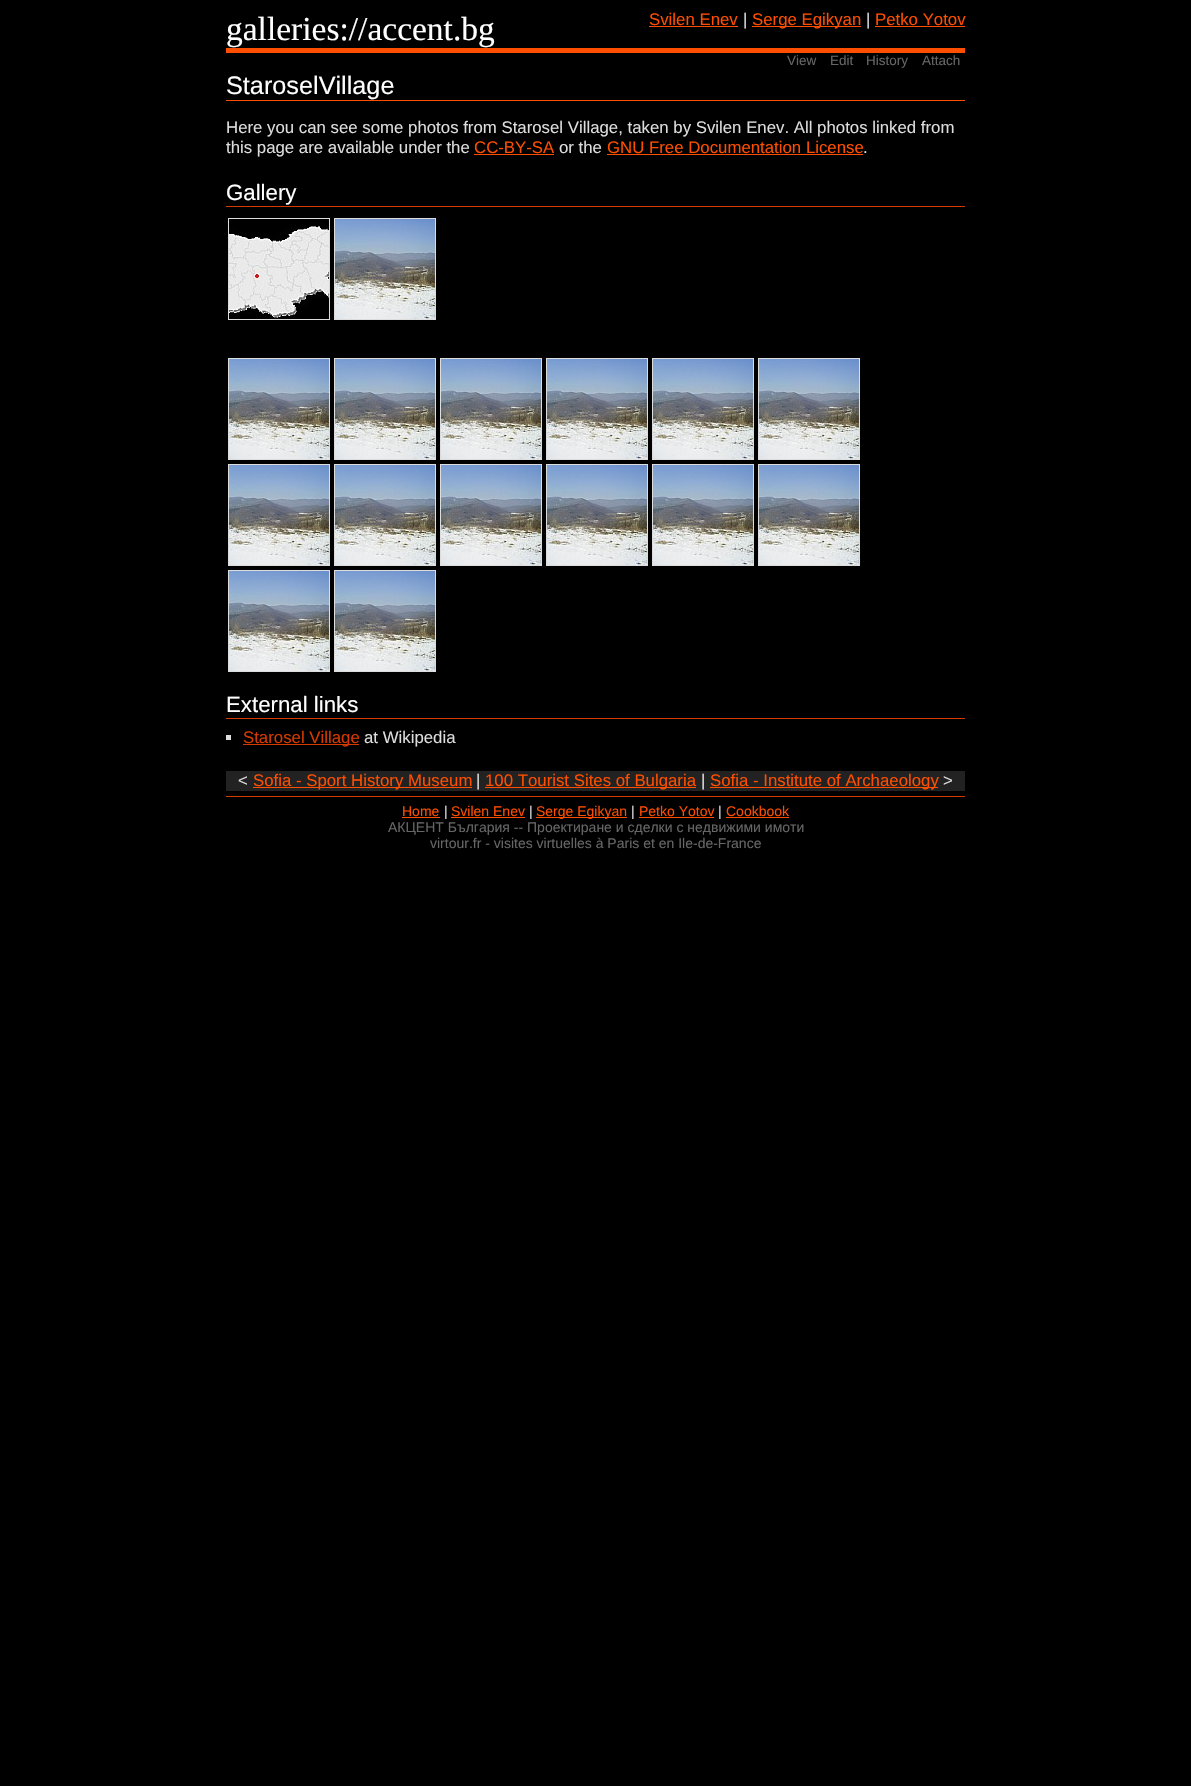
static SkFont makeFont(const char* family, int weight, float size, bool italic = false) {
  SkFontStyle style(weight, SkFontStyle::kNormal_Width,
    italic ? SkFontStyle::kItalic_Slant : SkFontStyle::kUpright_Slant);
  SkFont result(fontMgr->matchFamilyStyle(family, style), size);
  result.setSubpixel(true);
  return result;
}

static void text(SkCanvas* c, const char* s, float x, float y, const SkFont& font, SkColor color) {
  SkPaint ink(SkColor4f::FromColor(color));
  ink.setAntiAlias(true);
  c->drawString(s, x, y, font, ink);
}

static void box(SkCanvas* c, float l, float t, float r, float b, SkColor color) {
  SkPaint ink(SkColor4f::FromColor(color));
  ink.setAntiAlias(true);
  c->drawRect(SkRect::MakeLTRB(l, t, r, b), ink);
}

static void picture(SkCanvas* c, const char* path, float l, float t, float r, float b) {
  auto image = SkImages::DeferredFromEncodedData(SkData::MakeFromFileName(path));
  c->drawImageRect(image, SkRect::MakeLTRB(l, t, r, b), SkSamplingOptions());
}

void draw(SkCanvas* c) {
  SkPaint paint;
  paint.setAntiAlias(true);
  c->clear(0xff000000);
  box(c, 226, 48, 965, 53, 0xfffe4e00);
  SkFont face1 = makeFont("Liberation Serif", 400, 33.5f);
  text(c, "galleries://accent.bg", 226, 40, face1, 0xffffffff);
  SkFont face2 = makeFont("Liberation Sans", 400, 16.8f);
  text(c, "Svilen Enev", 649, 25, face2, 0xfffe4e00);
  box(c, 649, 26, 738, 27, 0xfffe4e00);
  text(c, "|", 743, 25, face2, 0xffdddddd);
  box(c, 752, 26, 861, 27, 0xfffe4e00);
  text(c, "Serge Egikyan", 752, 25, face2, 0xfffe4e00);
  text(c, "|", 866, 25, face2, 0xffdddddd);
  text(c, "Petko Yotov", 875, 25, face2, 0xfffe4e00);
  box(c, 875, 26, 965, 27, 0xfffe4e00);
  SkFont face3 = makeFont("Liberation Sans", 400, 13.5f);
  text(c, "View", 787, 65, face3, 0xff666666);
  text(c, "Edit", 830, 65, face3, 0xff666666);
  text(c, "History", 866, 65, face3, 0xff666666);
  text(c, "Attach", 922, 65, face3, 0xff666666);
  box(c, 226, 100, 965, 101, 0xfffe4e00);
  SkFont face4 = makeFont("Liberation Sans", 400, 25.25f);
  text(c, "StaroselVillage", 226, 94, face4, 0xffffffff);
  text(c, "Here you can see some photos from Starosel Village, taken by Svilen Enev. All photos linked from", 226, 133, face2, 0xffdddddd);
  text(c, "this page are available under the", 226, 153, face2, 0xffdddddd);
  text(c, "CC-BY-SA", 474, 153, face2, 0xfffe4e00);
  box(c, 474, 154, 554, 155, 0xfffe4e00);
  text(c, "or the", 559, 153, face2, 0xffdddddd);
  text(c, "GNU Free Documentation License", 607, 153, face2, 0xfffe4e00);
  box(c, 607, 154, 863, 155, 0xfffe4e00);
  text(c, ".", 863, 153, face2, 0xffdddddd);
  box(c, 226, 206, 965, 207, 0xffd53a00);
  SkFont face5 = makeFont("Liberation Sans", 400, 22.25f);
  text(c, "Gallery", 226, 200, face5, 0xffffffff);
  paint.setStyle(SkPaint::kStroke_Style);
  paint.setStrokeWidth(1);
  paint.setColor(0xffdddddd);
  c->drawRect(SkRect::MakeLTRB(228.5f, 218.5f, 329.5f, 319.5f), paint);
  c->drawRect(SkRect::MakeLTRB(334.5f, 218.5f, 435.5f, 319.5f), paint);
  picture(c, "img_01.png", 229, 219, 329, 319);
  picture(c, "img_02.png", 335, 219, 435, 319);
  c->drawRect(SkRect::MakeLTRB(228.5f, 358.5f, 329.5f, 459.5f), paint);
  c->drawRect(SkRect::MakeLTRB(334.5f, 358.5f, 435.5f, 459.5f), paint);
  c->drawRect(SkRect::MakeLTRB(440.5f, 358.5f, 541.5f, 459.5f), paint);
  c->drawRect(SkRect::MakeLTRB(546.5f, 358.5f, 647.5f, 459.5f), paint);
  c->drawRect(SkRect::MakeLTRB(652.5f, 358.5f, 753.5f, 459.5f), paint);
  c->drawRect(SkRect::MakeLTRB(758.5f, 358.5f, 859.5f, 459.5f), paint);
  picture(c, "img_02.png", 229, 359, 329, 459);
  picture(c, "img_02.png", 335, 359, 435, 459);
  picture(c, "img_02.png", 441, 359, 541, 459);
  picture(c, "img_02.png", 547, 359, 647, 459);
  picture(c, "img_02.png", 653, 359, 753, 459);
  picture(c, "img_02.png", 759, 359, 859, 459);
  c->drawRect(SkRect::MakeLTRB(228.5f, 464.5f, 329.5f, 565.5f), paint);
  c->drawRect(SkRect::MakeLTRB(334.5f, 464.5f, 435.5f, 565.5f), paint);
  c->drawRect(SkRect::MakeLTRB(440.5f, 464.5f, 541.5f, 565.5f), paint);
  c->drawRect(SkRect::MakeLTRB(546.5f, 464.5f, 647.5f, 565.5f), paint);
  c->drawRect(SkRect::MakeLTRB(652.5f, 464.5f, 753.5f, 565.5f), paint);
  c->drawRect(SkRect::MakeLTRB(758.5f, 464.5f, 859.5f, 565.5f), paint);
  picture(c, "img_02.png", 229, 465, 329, 565);
  picture(c, "img_02.png", 335, 465, 435, 565);
  picture(c, "img_02.png", 441, 465, 541, 565);
  picture(c, "img_02.png", 547, 465, 647, 565);
  picture(c, "img_02.png", 653, 465, 753, 565);
  picture(c, "img_02.png", 759, 465, 859, 565);
  c->drawRect(SkRect::MakeLTRB(228.5f, 570.5f, 329.5f, 671.5f), paint);
  c->drawRect(SkRect::MakeLTRB(334.5f, 570.5f, 435.5f, 671.5f), paint);
  picture(c, "img_02.png", 229, 571, 329, 671);
  picture(c, "img_02.png", 335, 571, 435, 671);
  box(c, 226, 718, 965, 719, 0xffd53a00);
  text(c, "External links", 226, 712, face5, 0xffffffff);
  box(c, 226, 735, 231, 740, 0xffdddddd);
  box(c, 243, 744, 359, 745, 0xffd53a00);
  text(c, "Starosel Village", 243, 743, face2, 0xffd53a00);
  text(c, "at Wikipedia", 364, 743, face2, 0xffdddddd);
  box(c, 226, 771, 965, 791, 0xff222222);
  text(c, "<", 238, 786, face2, 0xffdddddd);
  box(c, 253, 787, 472, 788, 0xfffe4e00);
  text(c, "Sofia - Sport History Museum", 253, 786, face2, 0xfffe4e00);
  text(c, "|", 476, 786, face2, 0xffdddddd);
  box(c, 485, 787, 696, 788, 0xfffe4e00);
  text(c, "100 Tourist Sites of Bulgaria", 485, 786, face2, 0xfffe4e00);
  text(c, "|", 701, 786, face2, 0xffdddddd);
  box(c, 710, 787, 938, 788, 0xfffe4e00);
  text(c, "Sofia - Institute of Archaeology", 710, 786, face2, 0xfffe4e00);
  text(c, ">", 943, 786, face2, 0xffdddddd);
  box(c, 226, 796, 965, 797, 0xffd53a00);
  SkFont face6 = makeFont("Liberation Sans", 400, 14);
  text(c, "Home", 402, 816, face6, 0xfffe4e00);
  box(c, 402, 817, 440, 818, 0xfffe4e00);
  text(c, "|", 444, 816, face6, 0xffdddddd);
  text(c, "Svilen Enev", 451, 816, face6, 0xfffe4e00);
  box(c, 451, 817, 525, 818, 0xfffe4e00);
  text(c, "|", 529, 816, face6, 0xffdddddd);
  box(c, 536, 817, 627, 818, 0xfffe4e00);
  text(c, "Serge Egikyan", 536, 816, face6, 0xfffe4e00);
  text(c, "|", 631, 816, face6, 0xffdddddd);
  text(c, "Petko Yotov", 639, 816, face6, 0xfffe4e00);
  box(c, 639, 817, 714, 818, 0xfffe4e00);
  text(c, "|", 718, 816, face6, 0xffdddddd);
  text(c, "Cookbook", 726, 816, face6, 0xfffe4e00);
  box(c, 726, 817, 789, 818, 0xfffe4e00);
  text(c, "АКЦЕНТ България -- Проектиране и сделки с недвижими имоти", 388, 832, face6, 0xff666666);
  text(c, "virtour.fr - visites virtuelles à Paris et en Ile-de-France", 430, 848, face6, 0xff666666);
}
